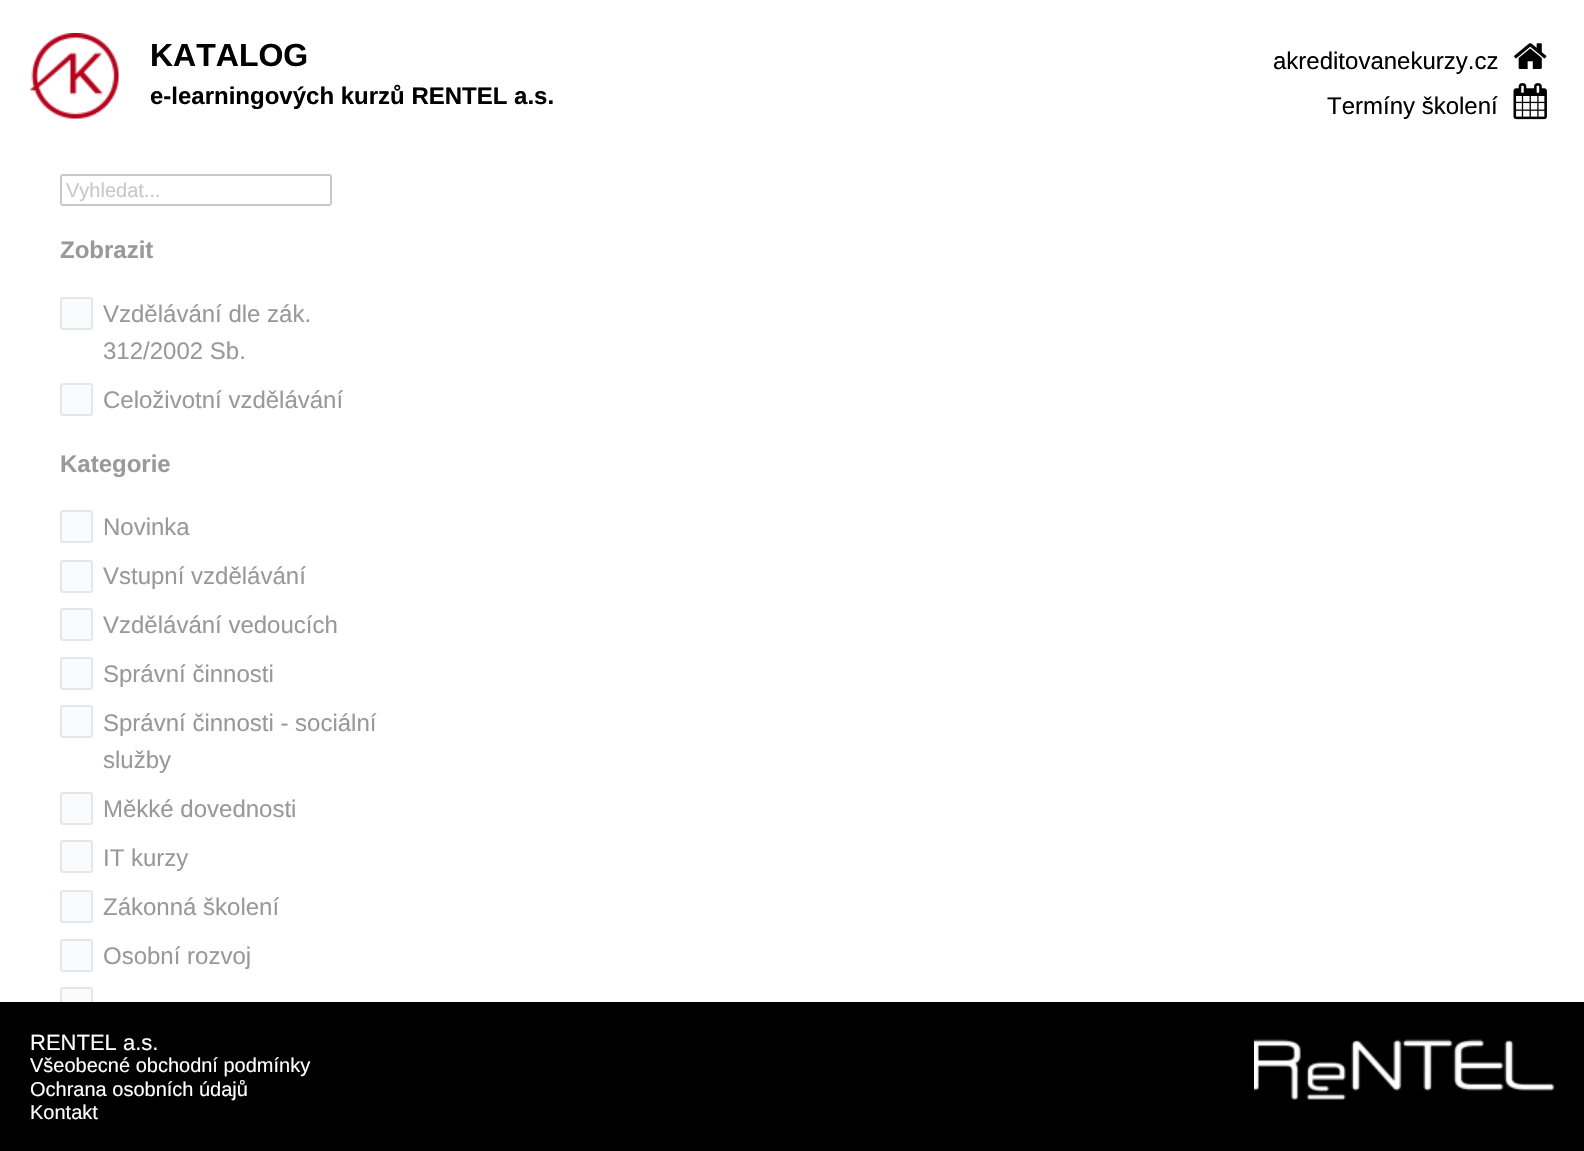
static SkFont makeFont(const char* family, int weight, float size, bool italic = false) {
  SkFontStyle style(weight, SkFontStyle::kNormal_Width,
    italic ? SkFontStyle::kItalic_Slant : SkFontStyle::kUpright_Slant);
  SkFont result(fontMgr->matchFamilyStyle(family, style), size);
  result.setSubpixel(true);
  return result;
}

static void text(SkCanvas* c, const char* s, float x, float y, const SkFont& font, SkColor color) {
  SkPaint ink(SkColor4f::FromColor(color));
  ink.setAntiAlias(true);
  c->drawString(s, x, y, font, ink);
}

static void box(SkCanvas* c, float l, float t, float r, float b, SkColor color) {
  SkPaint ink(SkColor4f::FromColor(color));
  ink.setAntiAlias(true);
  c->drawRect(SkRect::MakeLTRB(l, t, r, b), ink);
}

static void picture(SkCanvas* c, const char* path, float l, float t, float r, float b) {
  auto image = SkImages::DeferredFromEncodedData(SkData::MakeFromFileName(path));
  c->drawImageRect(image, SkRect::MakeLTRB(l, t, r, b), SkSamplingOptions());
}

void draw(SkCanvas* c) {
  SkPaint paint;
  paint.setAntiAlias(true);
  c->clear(0xffffffff);
  picture(c, "img_01.png", 30, 33, 120, 119);
  SkFont face1 = makeFont("Liberation Sans", 700, 32);
  text(c, "KATALOG", 150, 66, face1, 0xff000000);
  SkFont face2 = makeFont("Liberation Sans", 400, 24);
  text(c, "akreditovanekurzy.cz", 1273, 69, face2, 0xff000000);
  picture(c, "img_02.png", 1514, 43, 1547, 69);
  SkFont face3 = makeFont("Liberation Sans", 700, 24);
  text(c, "e-learningových kurzů RENTEL a.s.", 150, 104, face3, 0xff000000);
  text(c, "Termíny školení", 1327, 114, face2, 0xff000000);
  picture(c, "img_03.png", 1513, 83, 1547, 120);
  paint.setStyle(SkPaint::kStroke_Style);
  paint.setStrokeWidth(2);
  paint.setColor(0xffc8c8c8);
  c->drawRoundRect(SkRect::MakeLTRB(61, 175, 331, 205), 2, 2, paint);
  SkFont face4 = makeFont("Liberation Sans", 400, 20);
  text(c, "Vyhledat...", 66, 197, face4, 0xffc8c8c8);
  text(c, "Zobrazit", 60, 258, face3, 0xff999999);
  paint.setStyle(SkPaint::kFill_Style);
  paint.setColor(0xfff9fbfc);
  c->drawRoundRect(SkRect::MakeLTRB(61, 298, 92, 329), 2, 2, paint);
  paint.setStyle(SkPaint::kStroke_Style);
  paint.setColor(0xffe3e7eb);
  c->drawRoundRect(SkRect::MakeLTRB(61, 298, 92, 329), 2, 2, paint);
  text(c, "Vzdělávání dle zák.", 103, 322, face2, 0xff999999);
  text(c, "312/2002 Sb.", 103, 359, face2, 0xff999999);
  paint.setStyle(SkPaint::kFill_Style);
  paint.setColor(0xfff9fbfc);
  c->drawRoundRect(SkRect::MakeLTRB(61, 384, 92, 415), 2, 2, paint);
  paint.setStyle(SkPaint::kStroke_Style);
  paint.setColor(0xffe3e7eb);
  c->drawRoundRect(SkRect::MakeLTRB(61, 384, 92, 415), 2, 2, paint);
  text(c, "Celoživotní vzdělávání", 103, 408, face2, 0xff999999);
  text(c, "Kategorie", 60, 472, face3, 0xff999999);
  paint.setStyle(SkPaint::kFill_Style);
  paint.setColor(0xfff9fbfc);
  c->drawRoundRect(SkRect::MakeLTRB(61, 511, 92, 542), 2, 2, paint);
  paint.setStyle(SkPaint::kStroke_Style);
  paint.setColor(0xffe3e7eb);
  c->drawRoundRect(SkRect::MakeLTRB(61, 511, 92, 542), 2, 2, paint);
  text(c, "Novinka", 103, 535, face2, 0xff999999);
  paint.setStyle(SkPaint::kFill_Style);
  paint.setColor(0xfff9fbfc);
  c->drawRoundRect(SkRect::MakeLTRB(61, 561, 92, 592), 2, 2, paint);
  paint.setStyle(SkPaint::kStroke_Style);
  paint.setColor(0xffe3e7eb);
  c->drawRoundRect(SkRect::MakeLTRB(61, 561, 92, 592), 2, 2, paint);
  text(c, "Vstupní vzdělávání", 103, 584, face2, 0xff999999);
  paint.setStyle(SkPaint::kFill_Style);
  paint.setColor(0xfff9fbfc);
  c->drawRoundRect(SkRect::MakeLTRB(61, 609, 92, 640), 2, 2, paint);
  paint.setStyle(SkPaint::kStroke_Style);
  paint.setColor(0xffe3e7eb);
  c->drawRoundRect(SkRect::MakeLTRB(61, 609, 92, 640), 2, 2, paint);
  text(c, "Vzdělávání vedoucích", 103, 633, face2, 0xff999999);
  paint.setStyle(SkPaint::kFill_Style);
  paint.setColor(0xfff9fbfc);
  c->drawRoundRect(SkRect::MakeLTRB(61, 658, 92, 689), 2, 2, paint);
  paint.setStyle(SkPaint::kStroke_Style);
  paint.setColor(0xffe3e7eb);
  c->drawRoundRect(SkRect::MakeLTRB(61, 658, 92, 689), 2, 2, paint);
  text(c, "Správní činnosti", 103, 682, face2, 0xff999999);
  paint.setStyle(SkPaint::kFill_Style);
  paint.setColor(0xfff9fbfc);
  c->drawRoundRect(SkRect::MakeLTRB(61, 706, 92, 737), 2, 2, paint);
  paint.setStyle(SkPaint::kStroke_Style);
  paint.setColor(0xffe3e7eb);
  c->drawRoundRect(SkRect::MakeLTRB(61, 706, 92, 737), 2, 2, paint);
  text(c, "Správní činnosti - sociální", 103, 731, face2, 0xff999999);
  text(c, "služby", 103, 768, face2, 0xff999999);
  paint.setStyle(SkPaint::kFill_Style);
  paint.setColor(0xfff9fbfc);
  c->drawRoundRect(SkRect::MakeLTRB(61, 793, 92, 824), 2, 2, paint);
  paint.setStyle(SkPaint::kStroke_Style);
  paint.setColor(0xffe3e7eb);
  c->drawRoundRect(SkRect::MakeLTRB(61, 793, 92, 824), 2, 2, paint);
  text(c, "Měkké dovednosti", 103, 817, face2, 0xff999999);
  paint.setStyle(SkPaint::kFill_Style);
  paint.setColor(0xfff9fbfc);
  c->drawRoundRect(SkRect::MakeLTRB(61, 841, 92, 872), 2, 2, paint);
  paint.setStyle(SkPaint::kStroke_Style);
  paint.setColor(0xffe3e7eb);
  c->drawRoundRect(SkRect::MakeLTRB(61, 841, 92, 872), 2, 2, paint);
  text(c, "IT kurzy", 103, 866, face2, 0xff999999);
  paint.setStyle(SkPaint::kFill_Style);
  paint.setColor(0xfff9fbfc);
  c->drawRoundRect(SkRect::MakeLTRB(61, 891, 92, 922), 2, 2, paint);
  paint.setStyle(SkPaint::kStroke_Style);
  paint.setColor(0xffe3e7eb);
  c->drawRoundRect(SkRect::MakeLTRB(61, 891, 92, 922), 2, 2, paint);
  text(c, "Zákonná školení", 103, 915, face2, 0xff999999);
  paint.setStyle(SkPaint::kFill_Style);
  paint.setColor(0xfff9fbfc);
  c->drawRoundRect(SkRect::MakeLTRB(61, 940, 92, 971), 2, 2, paint);
  paint.setStyle(SkPaint::kStroke_Style);
  paint.setColor(0xffe3e7eb);
  c->drawRoundRect(SkRect::MakeLTRB(61, 940, 92, 971), 2, 2, paint);
  text(c, "Osobní rozvoj", 103, 964, face2, 0xff999999);
  paint.setStyle(SkPaint::kFill_Style);
  paint.setColor(0xfff9fbfc);
  c->drawRoundRect(SkRect::MakeLTRB(61, 988, 92, 1019), 2, 2, paint);
  paint.setStyle(SkPaint::kStroke_Style);
  paint.setColor(0xffe3e7eb);
  c->drawRoundRect(SkRect::MakeLTRB(61, 988, 92, 1019), 2, 2, paint);
  box(c, 0, 1002, 1584, 1151, 0xff000000);
  SkFont face5 = makeFont("Liberation Sans", 400, 22);
  text(c, "RENTEL a.s.", 30, 1050, face5, 0xffffffff);
  text(c, "Všeobecné obchodní podmínky", 30, 1072, face4, 0xffffffff);
  text(c, "Ochrana osobních údajů", 30, 1096, face4, 0xffffffff);
  text(c, "Kontakt", 30, 1119, face4, 0xffffffff);
  picture(c, "img_04.png", 1254, 1039, 1554, 1100);
}
